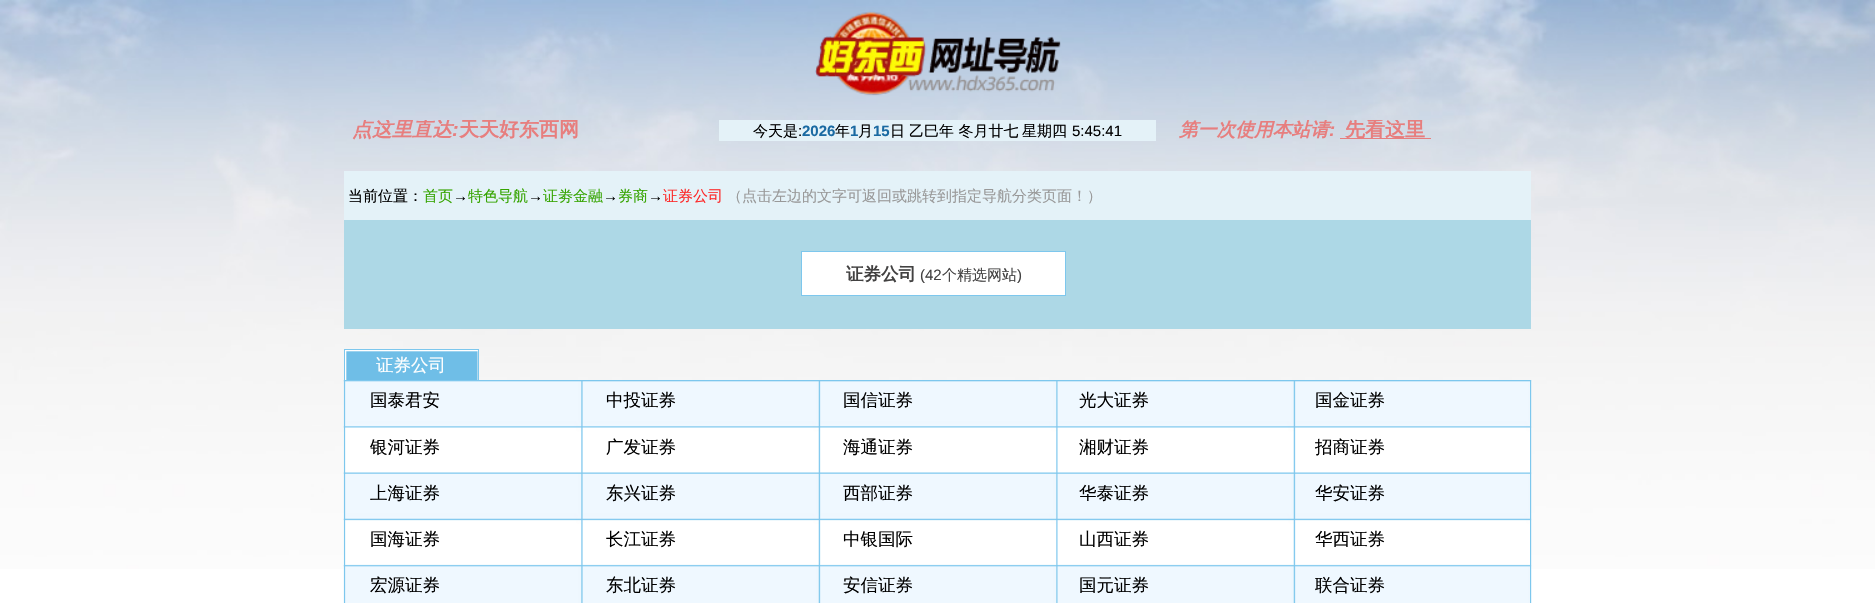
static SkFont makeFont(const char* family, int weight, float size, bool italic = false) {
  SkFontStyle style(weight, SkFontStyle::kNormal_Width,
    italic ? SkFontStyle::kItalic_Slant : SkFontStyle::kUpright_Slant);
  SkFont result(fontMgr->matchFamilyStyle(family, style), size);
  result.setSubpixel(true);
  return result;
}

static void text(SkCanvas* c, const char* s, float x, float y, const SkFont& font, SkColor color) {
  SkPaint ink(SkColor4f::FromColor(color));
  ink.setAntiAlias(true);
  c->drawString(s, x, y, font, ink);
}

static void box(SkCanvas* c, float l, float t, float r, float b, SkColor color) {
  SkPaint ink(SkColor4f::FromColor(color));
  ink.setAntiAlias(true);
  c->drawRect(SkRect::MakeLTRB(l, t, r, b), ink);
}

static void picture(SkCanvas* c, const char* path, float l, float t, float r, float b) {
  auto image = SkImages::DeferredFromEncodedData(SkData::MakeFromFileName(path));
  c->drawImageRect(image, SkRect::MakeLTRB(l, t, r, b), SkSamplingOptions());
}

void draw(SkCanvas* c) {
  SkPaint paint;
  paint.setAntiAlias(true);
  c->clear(0xffffffff);
  picture(c, "img_01.png", 0, 0, 1875, 569);
  picture(c, "img_02.png", 815, 11, 1061, 96);
  c->save();
  c->clipRect(SkRect::MakeLTRB(344, 120, 1531, 141));
  SkFont face1 = makeFont("WenQuanYi Zen Hei", 700, 20, true);
  text(c, "点这里直达", 352, 136, face1, 0xffe77e7e);
  c->restore();
  SkFont face2 = makeFont("Liberation Sans", 700, 20, true);
  text(c, ":", 452, 136, face2, 0xffe77e7e);
  c->save();
  c->clipRect(SkRect::MakeLTRB(344, 120, 1531, 141));
  SkFont face3 = makeFont("WenQuanYi Zen Hei", 700, 20);
  text(c, "天天好东西网", 459, 136, face3, 0xffe77e7e);
  c->restore();
  box(c, 719, 120, 1156, 141, 0xffe4f2f8);
  SkFont face4 = makeFont("WenQuanYi Zen Hei", 500, 15);
  text(c, "今天是", 753, 136, face4, 0xff000000);
  SkFont face5 = makeFont("Liberation Sans", 400, 15);
  text(c, ":", 798, 136, face5, 0xff000000);
  SkFont face6 = makeFont("Liberation Sans", 700, 15);
  text(c, "2026", 802, 136, face6, 0xff1a6aa2);
  text(c, "年", 835, 136, face4, 0xff000000);
  text(c, "1", 850, 136, face6, 0xff1a6aa2);
  text(c, "月", 858, 136, face4, 0xff000000);
  text(c, "15", 873, 136, face6, 0xff1a6aa2);
  text(c, "日", 890, 136, face4, 0xff000000);
  text(c, "乙巳年 冬月廿七", 909, 136, face4, 0xff000000);
  text(c, "星期四", 1022, 136, face4, 0xff000000);
  text(c, "5:45:41", 1072, 136, face5, 0xff000000);
  SkFont face7 = makeFont("WenQuanYi Zen Hei", 700, 18.75f, true);
  text(c, "第一次使用本站请", 1179, 136, face7, 0xffe77e7e);
  SkFont face8 = makeFont("Liberation Sans", 700, 18.75f, true);
  text(c, ":", 1329, 136, face8, 0xffe77e7e);
  box(c, 1340, 138, 1431, 139, 0xffe77e7e);
  c->save();
  c->clipRect(SkRect::MakeLTRB(344, 120, 1531, 141));
  text(c, "先看这里", 1345, 136, face3, 0xffe77e7e);
  c->restore();
  box(c, 344, 171, 1531, 220, 0xffe4f2f8);
  text(c, "当前位置：", 348, 201, face4, 0xff000000);
  text(c, "首页", 423, 201, face4, 0xff35a400);
  text(c, "→", 453, 201, face5, 0xff000000);
  text(c, "特色导航", 468, 201, face4, 0xff35a400);
  text(c, "→", 528, 201, face5, 0xff000000);
  text(c, "证劵金融", 543, 201, face4, 0xff35a400);
  text(c, "→", 603, 201, face5, 0xff000000);
  text(c, "券商", 618, 201, face4, 0xff35a400);
  text(c, "→", 648, 201, face5, 0xff000000);
  text(c, "证券公司", 663, 201, face4, 0xfffd2828);
  text(c, "（点击左边的文字可返回或跳转到指定导航分类页面！）", 727, 201, face4, 0xff999999);
  box(c, 344, 220, 1531, 329, 0xffadd8e6);
  paint.setColor(0xffffffff);
  c->drawRect(SkRect::MakeLTRB(801.5f, 251.5f, 1065.5f, 295.5f), paint);
  paint.setStyle(SkPaint::kStroke_Style);
  paint.setStrokeWidth(1);
  paint.setColor(0xff7dc7ed);
  c->drawRect(SkRect::MakeLTRB(801.5f, 251.5f, 1065.5f, 295.5f), paint);
  SkFont face9 = makeFont("WenQuanYi Zen Hei", 700, 17.5f);
  text(c, "证券公司", 846, 280, face9, 0xff424141);
  text(c, "(42", 920, 280, face5, 0xff424141);
  text(c, "个精选网站", 942, 280, face4, 0xff424141);
  text(c, ")", 1017, 280, face5, 0xff424141);
  picture(c, "img_03.png", 345, 350, 478, 380);
  box(c, 344, 349, 479, 350, 0xff7dc7ed);
  box(c, 478, 349, 479, 380, 0xff7dc7ed);
  box(c, 344, 349, 345, 380, 0xff7dc7ed);
  SkFont face10 = makeFont("WenQuanYi Zen Hei", 500, 17.5f);
  text(c, "证券公司", 376, 371, face10, 0xffffffff);
  picture(c, "img_04.png", 343, 380, 1532, 603);
  box(c, 344, 380, 1531, 381, 0xff7dc7ed);
  box(c, 1530, 380, 1531, 603, 0xff7dc7ed);
  box(c, 344, 380, 345, 603, 0xff7dc7ed);
  text(c, "国泰君安", 370, 406, face10, 0xff000000);
  text(c, "中投证券", 606, 406, face10, 0xff000000);
  text(c, "国信证券", 843, 406, face10, 0xff000000);
  text(c, "光大证券", 1079, 406, face10, 0xff000000);
  text(c, "国金证券", 1315, 406, face10, 0xff000000);
  text(c, "银河证券", 370, 453, face10, 0xff000000);
  text(c, "广发证券", 606, 453, face10, 0xff000000);
  text(c, "海通证券", 843, 453, face10, 0xff000000);
  text(c, "湘财证券", 1079, 453, face10, 0xff000000);
  text(c, "招商证券", 1315, 453, face10, 0xff000000);
  text(c, "上海证券", 370, 499, face10, 0xff000000);
  text(c, "东兴证券", 606, 499, face10, 0xff000000);
  text(c, "西部证券", 843, 499, face10, 0xff000000);
  text(c, "华泰证券", 1079, 499, face10, 0xff000000);
  text(c, "华安证券", 1315, 499, face10, 0xff000000);
  text(c, "国海证券", 370, 545, face10, 0xff000000);
  text(c, "长江证券", 606, 545, face10, 0xff000000);
  text(c, "中银国际", 843, 545, face10, 0xff000000);
  text(c, "山西证券", 1079, 545, face10, 0xff000000);
  text(c, "华西证券", 1315, 545, face10, 0xff000000);
  text(c, "宏源证券", 370, 591, face10, 0xff000000);
  text(c, "东北证券", 606, 591, face10, 0xff000000);
  text(c, "安信证券", 843, 591, face10, 0xff000000);
  text(c, "国元证券", 1079, 591, face10, 0xff000000);
  text(c, "联合证券", 1315, 591, face10, 0xff000000);
}
